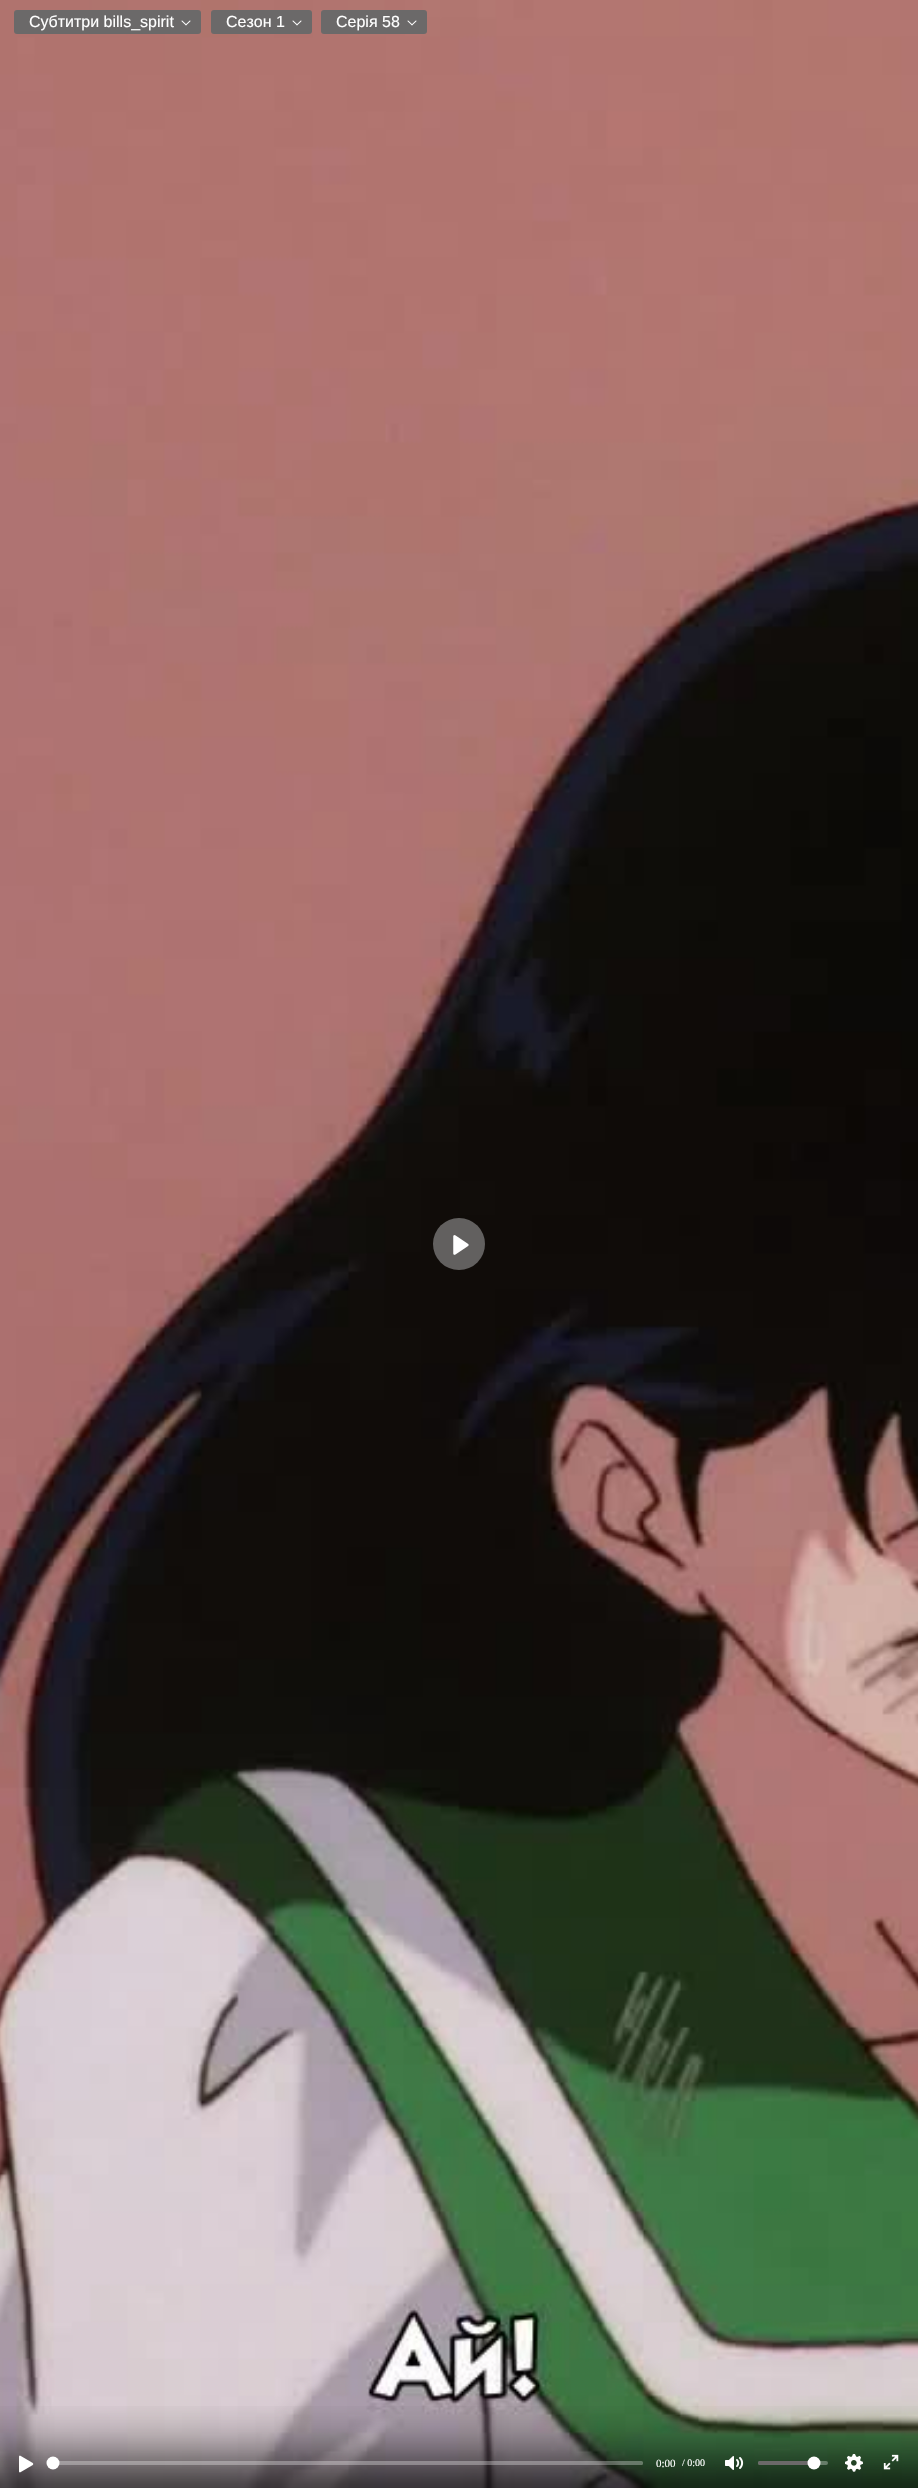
static SkFont makeFont(const char* family, int weight, float size, bool italic = false) {
  SkFontStyle style(weight, SkFontStyle::kNormal_Width,
    italic ? SkFontStyle::kItalic_Slant : SkFontStyle::kUpright_Slant);
  SkFont result(fontMgr->matchFamilyStyle(family, style), size);
  result.setSubpixel(true);
  return result;
}

static void text(SkCanvas* c, const char* s, float x, float y, const SkFont& font, SkColor color) {
  SkPaint ink(SkColor4f::FromColor(color));
  ink.setAntiAlias(true);
  c->drawString(s, x, y, font, ink);
}

static void roundBox(SkCanvas* c, float l, float t, float r, float b, float radius, SkColor color) {
  SkPaint ink(SkColor4f::FromColor(color));
  ink.setAntiAlias(true);
  c->drawRoundRect(SkRect::MakeLTRB(l, t, r, b), radius, radius, ink);
}

static void picture(SkCanvas* c, const char* path, float l, float t, float r, float b) {
  auto image = SkImages::DeferredFromEncodedData(SkData::MakeFromFileName(path));
  c->drawImageRect(image, SkRect::MakeLTRB(l, t, r, b), SkSamplingOptions());
}

void draw(SkCanvas* c) {
  SkPaint paint;
  paint.setAntiAlias(true);
  c->clear(0xffffffff);
  picture(c, "img_01.png", 0, 0, 918, 2488);
  roundBox(c, 14, 10, 201, 34, 3, 0xff6b6969);
  SkFont face1 = makeFont("Liberation Sans", 400, 16);
  text(c, "Субтитри bills_spirit", 29, 27, face1, 0xffffffff);
  picture(c, "img_02.png", 181, 20, 191, 26);
  roundBox(c, 211, 10, 312, 34, 3, 0xff6b6969);
  text(c, "Сезон 1", 226, 27, face1, 0xffffffff);
  picture(c, "img_02.png", 292, 20, 302, 26);
  roundBox(c, 321, 10, 427, 34, 3, 0xff6b6969);
  text(c, "Серія 58", 336, 27, face1, 0xffffffff);
  picture(c, "img_02.png", 407, 20, 417, 26);
  paint.setColor(0xff62605f);
  c->drawCircle(459, 1244, 26, paint);
  picture(c, "img_03.png", 453, 1235, 469, 1255);
  picture(c, "img_04.png", 0, 2406, 918, 2488);
  picture(c, "img_05.png", 19, 2455, 34, 2473);
  roundBox(c, 53, 2461, 643, 2465, 1.5f, 0x4dffffff);
  paint.setColor(0xffffffff);
  c->drawCircle(53, 2463, 6.5f, paint);
  SkFont face2 = makeFont("Liberation Serif", 400, 11);
  text(c, "0:00", 656, 2467, face2, 0xffffffff);
  SkFont face3 = makeFont("Liberation Serif", 400, 10);
  text(c, "/ 0:00", 682, 2466, face3, 0xffffffff);
  picture(c, "img_06.png", 725, 2456, 744, 2470);
  roundBox(c, 758, 2461, 828, 2465, 2, 0x4dffffff);
  roundBox(c, 758, 2461, 814, 2465, 2, 0xff6b6969);
  c->drawCircle(814, 2463, 6.5f, paint);
  picture(c, "img_07.png", 845, 2454, 863, 2472);
  picture(c, "img_08.png", 883, 2454, 899, 2470);
}
